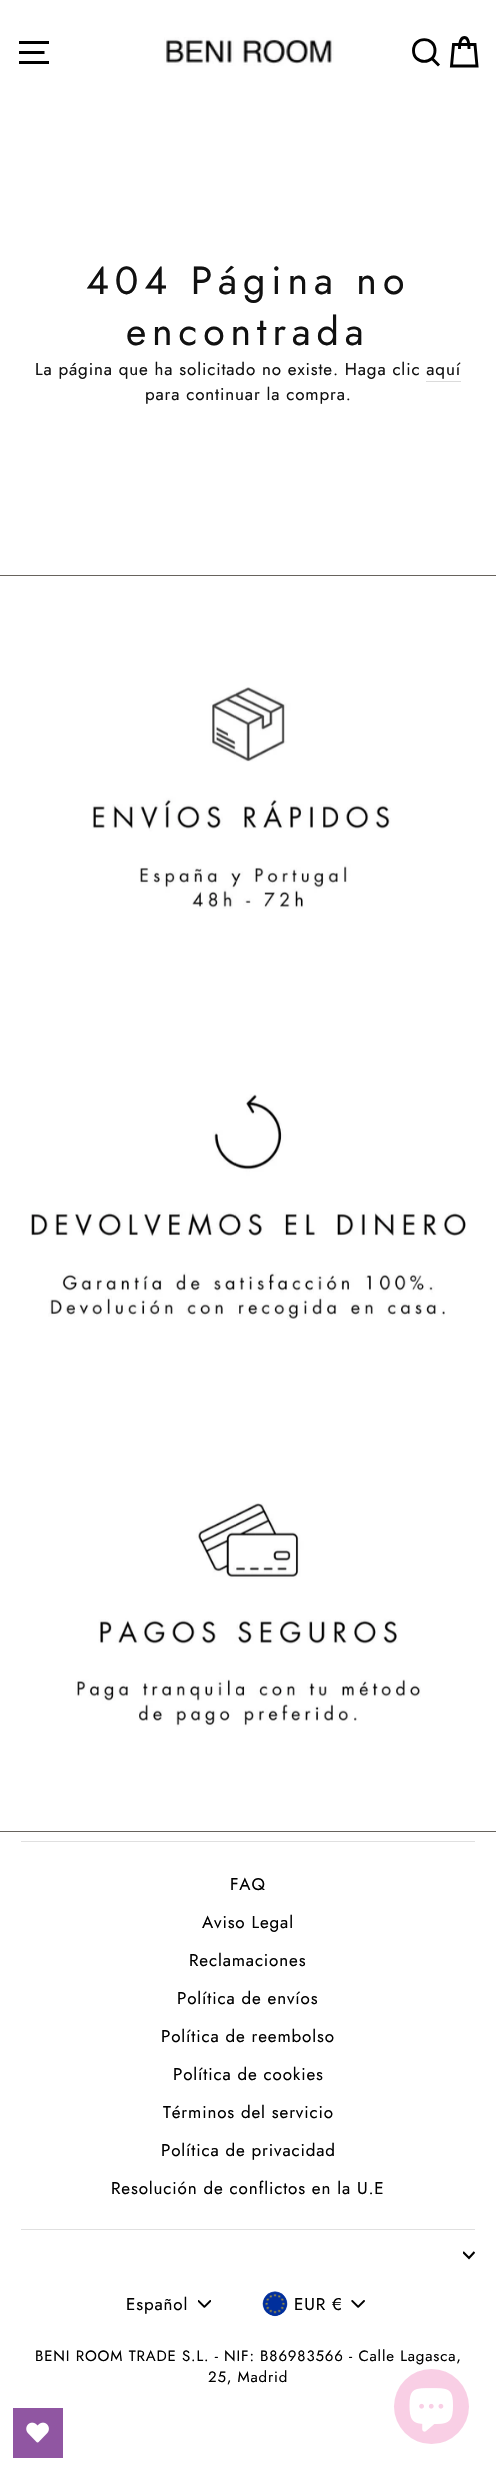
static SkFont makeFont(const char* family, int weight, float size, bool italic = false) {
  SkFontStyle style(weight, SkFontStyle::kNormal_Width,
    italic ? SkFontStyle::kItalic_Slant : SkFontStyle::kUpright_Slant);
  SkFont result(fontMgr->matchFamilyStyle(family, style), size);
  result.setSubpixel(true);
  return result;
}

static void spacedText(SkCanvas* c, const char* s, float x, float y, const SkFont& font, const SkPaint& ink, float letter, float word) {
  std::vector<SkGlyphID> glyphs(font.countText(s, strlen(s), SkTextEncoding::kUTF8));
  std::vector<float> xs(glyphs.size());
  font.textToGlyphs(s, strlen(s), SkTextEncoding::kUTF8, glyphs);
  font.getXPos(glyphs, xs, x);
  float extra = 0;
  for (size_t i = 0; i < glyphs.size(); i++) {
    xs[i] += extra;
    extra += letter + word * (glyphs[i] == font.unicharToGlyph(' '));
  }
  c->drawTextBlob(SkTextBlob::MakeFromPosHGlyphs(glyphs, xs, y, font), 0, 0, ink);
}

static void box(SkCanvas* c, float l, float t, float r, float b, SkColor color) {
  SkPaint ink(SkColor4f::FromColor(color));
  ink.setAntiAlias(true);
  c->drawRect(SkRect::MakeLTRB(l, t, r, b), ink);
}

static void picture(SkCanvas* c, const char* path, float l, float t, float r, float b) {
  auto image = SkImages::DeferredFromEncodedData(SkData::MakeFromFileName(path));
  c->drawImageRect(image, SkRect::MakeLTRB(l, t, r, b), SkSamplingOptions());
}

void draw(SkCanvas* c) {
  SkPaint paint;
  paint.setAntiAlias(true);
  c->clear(0xffffffff);
  paint.setStyle(SkPaint::kStroke_Style);
  paint.setStrokeWidth(2.9f);
  paint.setColor(0xff000000);
  c->drawPath(SkPathBuilder().moveTo(19, 42.5f).lineTo(49, 42.5f).moveTo(19, 52.5f).lineTo(44.5f, 52.5f).moveTo(19, 62.5f).lineTo(49, 62.5f).detach(), paint);
  picture(c, "img_01.png", 164, 37, 334, 66);
  c->drawPath(SkPathBuilder().moveTo(435, 50.5f).cubicTo(435, 65, 413.5f, 65, 413.5f, 50.5f).cubicTo(413.5f, 36, 435, 36, 435, 50.5f).close().moveTo(439, 65.5f).lineTo(432, 58.5f).moveTo(459.5f, 49).cubicTo(459.5f, 39.5f, 461.5f, 37.5f, 464.5f, 37.5f).cubicTo(467, 37.5f, 469, 39.5f, 469, 49).detach(), paint);
  c->drawPath(SkPathBuilder().moveTo(453.5f, 44.5f).lineTo(475, 44.5f).lineTo(477, 66).lineTo(451.5f, 66).close().detach(), paint);
  SkFont face1 = makeFont("Jost", 400, 39.25f);
  paint.setStyle(SkPaint::kFill_Style);
  paint.setColor(0xff111111);
  spacedText(c, "404 Página no", 86, 294, face1, paint, 5.9f, 0);
  spacedText(c, "encontrada", 126, 345, face1, paint, 5.9f, 0);
  SkFont face2 = makeFont("Jost", 400, 17);
  spacedText(c, "La página que ha solicitado no existe. Haga clic aquí", 35, 375, face2, paint, 0.85f, 0);
  box(c, 426, 381, 461, 382, 0xffdbdbdb);
  spacedText(c, "para continuar la compra.", 145, 400, face2, paint, 0.85f, 0);
  box(c, 0, 575, 496, 576, 0xff67635d);
  picture(c, "img_02.png", 92, 687, 391, 909);
  picture(c, "img_03.png", 31, 1094, 466, 1320);
  picture(c, "img_04.png", 75, 1503, 421, 1727);
  box(c, 0, 1831, 496, 1832, 0xff67635d);
  box(c, 21, 1841, 475, 1842, 0xffe0e0e0);
  paint.setColor(0xff000000);
  spacedText(c, "FAQ", 230, 1890, face2, paint, 0.85f, 0);
  spacedText(c, "Aviso Legal", 202, 1928, face2, paint, 0.85f, 0);
  spacedText(c, "Reclamaciones", 189, 1966, face2, paint, 0.85f, 0);
  spacedText(c, "Política de envíos", 177, 2004, face2, paint, 0.85f, 0);
  spacedText(c, "Política de reembolso", 161, 2042, face2, paint, 0.85f, 0);
  spacedText(c, "Política de cookies", 173, 2080, face2, paint, 0.85f, 0);
  spacedText(c, "Términos del servicio", 163, 2118, face2, paint, 0.85f, 0);
  spacedText(c, "Política de privacidad", 161, 2156, face2, paint, 0.85f, 0);
  spacedText(c, "Resolución de conflictos en la U.E", 111, 2194, face2, paint, 0.85f, 0);
  box(c, 21, 2229, 475, 2230, 0xffe0e0e0);
  c->save();
  c->clipRect(SkRect::MakeLTRB(463, 2249, 475, 2261));
  paint.setStyle(SkPaint::kStroke_Style);
  paint.setStrokeWidth(2.2f);
  c->drawPath(SkPathBuilder().moveTo(463, 2252).lineTo(469, 2258).lineTo(474.5f, 2252).detach(), paint);
  c->restore();
  picture(c, "img_05.png", 198, 2300, 211, 2308);
  paint.setStyle(SkPaint::kFill_Style);
  spacedText(c, "Español", 126, 2310, face2, paint, 0.85f, 0);
  picture(c, "img_06.png", 351, 2300, 365, 2308);
  picture(c, "img_07.png", 262, 2291, 288, 2317);
  spacedText(c, "EUR €", 294, 2310, face2, paint, 0.85f, 0);
  SkFont face3 = makeFont("Jost", 400, 15);
  spacedText(c, "BENI ROOM TRADE S.L. - NIF: B86983566 - Calle Lagasca,", 35, 2361, face3, paint, 0.85f, 0);
  spacedText(c, "25, Madrid", 208, 2382, face3, paint, 0.85f, 0);
  box(c, 13, 2408, 63, 2458, 0xff9056a2);
  picture(c, "img_08.png", 26, 2422, 49, 2443);
  paint.setColor(0xfff9cfe5);
  c->drawCircle(431.5f, 2406.5f, 37.5f, paint);
  picture(c, "img_09.png", 409, 2388, 453, 2432);
}
